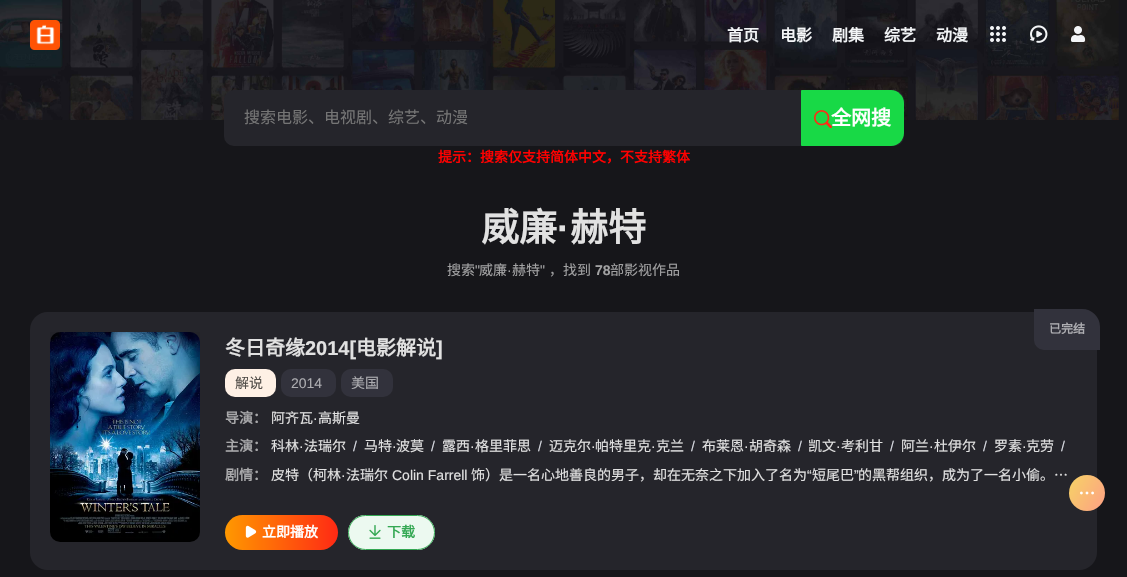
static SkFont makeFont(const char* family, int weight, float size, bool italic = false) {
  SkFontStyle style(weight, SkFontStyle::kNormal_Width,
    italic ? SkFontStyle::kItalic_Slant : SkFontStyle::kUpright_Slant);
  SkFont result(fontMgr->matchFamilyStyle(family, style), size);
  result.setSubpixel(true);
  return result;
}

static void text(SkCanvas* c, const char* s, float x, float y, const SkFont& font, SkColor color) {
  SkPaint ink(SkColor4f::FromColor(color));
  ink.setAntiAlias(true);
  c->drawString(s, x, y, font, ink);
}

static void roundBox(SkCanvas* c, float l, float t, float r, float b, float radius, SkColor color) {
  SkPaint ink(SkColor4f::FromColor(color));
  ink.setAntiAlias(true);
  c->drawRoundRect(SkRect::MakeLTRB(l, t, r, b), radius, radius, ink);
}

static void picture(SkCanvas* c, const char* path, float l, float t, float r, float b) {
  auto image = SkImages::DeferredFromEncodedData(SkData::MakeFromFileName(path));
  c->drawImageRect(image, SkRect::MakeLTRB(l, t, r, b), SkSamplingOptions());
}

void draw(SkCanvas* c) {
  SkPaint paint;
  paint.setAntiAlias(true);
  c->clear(0xff16161a);
  picture(c, "img_01.png", 0, 0, 1119, 120);
  picture(c, "img_02.png", 30, 20, 60, 50);
  SkFont face1 = makeFont("Noto Sans CJK SC", 700, 16);
  text(c, "首页", 727, 41, face1, 0xfff3f5f7);
  text(c, "电影", 780, 41, face1, 0xfff3f5f7);
  text(c, "剧集", 832, 41, face1, 0xfff3f5f7);
  text(c, "综艺", 884, 41, face1, 0xfff3f5f7);
  text(c, "动漫", 936, 41, face1, 0xfff3f5f7);
  picture(c, "img_03.png", 990, 26, 1006, 42);
  picture(c, "img_04.png", 1030, 25, 1048, 43);
  picture(c, "img_05.png", 1070, 26, 1086, 42);
  roundBox(c, 224, 90, 904, 146, 10, 0xff25252b);
  SkFont face2 = makeFont("Noto Sans CJK SC", 400, 16);
  text(c, "搜索电影、电视剧、综艺、动漫", 244, 123, face2, 0xff757575);
  paint.setColor(0xff18d946);
  c->drawPath(SkPathBuilder().moveTo(802, 90).lineTo(891, 90).cubicTo(898, 90, 904, 96, 904, 103).lineTo(904, 133).cubicTo(904, 140, 898, 146, 891, 146).lineTo(802, 146).cubicTo(801.5f, 146, 801, 145.5f, 801, 145).lineTo(801, 91).cubicTo(801, 90.5f, 801.5f, 90, 802, 90).close().detach(), paint);
  picture(c, "img_06.png", 814, 110, 832, 129);
  SkFont face3 = makeFont("Noto Sans CJK SC", 700, 20);
  text(c, "全网搜", 831, 125, face3, 0xffffffff);
  SkFont face4 = makeFont("Noto Sans CJK SC", 700, 14);
  text(c, "提示：搜索仅支持简体中文，不支持繁体", 438, 162, face4, 0xffff0000);
  SkFont face5 = makeFont("Noto Sans CJK SC", 700, 38);
  text(c, "威廉", 481, 241, face5, 0xffe1e1e1);
  SkFont face6 = makeFont("Liberation Sans", 700, 38);
  text(c, "·", 557, 241, face6, 0xffe1e1e1);
  text(c, "赫特", 570, 241, face5, 0xffe1e1e1);
  SkFont face7 = makeFont("Noto Sans CJK SC", 400, 14);
  text(c, "搜索", 447, 275, face7, 0xffa2a2a3);
  SkFont face8 = makeFont("Liberation Sans", 400, 14);
  text(c, "\"", 475, 275, face8, 0xffa2a2a3);
  text(c, "威廉", 479, 275, face7, 0xffa2a2a3);
  text(c, "·", 507, 275, face8, 0xffa2a2a3);
  text(c, "赫特", 512, 275, face7, 0xffa2a2a3);
  text(c, "\"", 540, 275, face8, 0xffa2a2a3);
  text(c, "，找到", 549, 275, face7, 0xffa2a2a3);
  SkFont face9 = makeFont("Liberation Sans", 700, 14);
  text(c, "78", 595, 275, face9, 0xffa2a2a3);
  text(c, "部影视作品", 610, 275, face7, 0xffa2a2a3);
  roundBox(c, 30, 312, 1097, 570, 18, 0xff25252b);
  picture(c, "img_07.png", 50, 332, 200, 542);
  {
    const SkColor colors[] = {0x00000000, 0x03000000, 0x0f000000};
    const float stops[] = {0, 0.44f, 1};
    SkMatrix m = SkMatrix::Translate(125, 437).preScale(106, 148);
    paint.setShader(SkGradientShader::MakeRadial({0, 0}, 1, colors, stops, 3, SkTileMode::kClamp, 0, &m));
    paint.setAlpha(255);
  }
  c->drawRect(SkRect::MakeLTRB(50, 332, 200, 532), paint);
  paint.setShader(nullptr);
  paint.setColor(0xff32323c);
  c->drawPath(SkPathBuilder().moveTo(1035.5f, 310.5f).lineTo(1082, 310.5f).cubicTo(1091, 310.5f, 1098.5f, 318, 1098.5f, 327).lineTo(1098.5f, 348.5f).lineTo(1044, 348.5f).cubicTo(1039.5f, 348.5f, 1035.5f, 344.5f, 1035.5f, 340).close().detach(), paint);
  paint.setStyle(SkPaint::kStroke_Style);
  paint.setStrokeWidth(3);
  c->drawPath(SkPathBuilder().moveTo(1035.5f, 310.5f).lineTo(1082, 310.5f).cubicTo(1091, 310.5f, 1098.5f, 318, 1098.5f, 327).lineTo(1098.5f, 348.5f).lineTo(1044, 348.5f).cubicTo(1039.5f, 348.5f, 1035.5f, 344.5f, 1035.5f, 340).close().detach(), paint);
  SkFont face10 = makeFont("Noto Sans CJK SC", 700, 12);
  text(c, "已完结", 1049, 333, face10, 0xffadadb1);
  text(c, "冬日奇缘", 225, 355, face3, 0xffe1e1e1);
  SkFont face11 = makeFont("Liberation Sans", 700, 20);
  text(c, "2014[", 305, 355, face11, 0xffe1e1e1);
  text(c, "电影解说", 356, 355, face3, 0xffe1e1e1);
  text(c, "]", 436, 355, face11, 0xffe1e1e1);
  roundBox(c, 225, 369, 276, 397, 10, 0xfffef0e5);
  text(c, "解说", 235, 388, face7, 0xff514d49);
  roundBox(c, 281, 369, 336, 397, 10, 0xff32323c);
  text(c, "2014", 291, 388, face8, 0xffadadb1);
  roundBox(c, 341, 369, 393, 397, 10, 0xff32323c);
  text(c, "美国", 351, 388, face7, 0xffadadb1);
  text(c, "导演：", 225, 423, face4, 0xffa8a8aa);
  text(c, "阿齐瓦", 271, 423, face7, 0xffe1e1e1);
  text(c, "·", 313, 423, face8, 0xffe1e1e1);
  text(c, "高斯曼", 318, 423, face7, 0xffe1e1e1);
  text(c, "主演：", 225, 451, face4, 0xffa8a8aa);
  text(c, "科林", 271, 451, face7, 0xffe1e1e1);
  text(c, "·", 299, 451, face8, 0xffe1e1e1);
  text(c, "法瑞尔", 304, 451, face7, 0xffe1e1e1);
  text(c, "/", 353, 451, face8, 0xffd7dae1);
  text(c, "马特", 364, 451, face7, 0xffe1e1e1);
  text(c, "·", 392, 451, face8, 0xffe1e1e1);
  text(c, "波莫", 396, 451, face7, 0xffe1e1e1);
  text(c, "/", 431, 451, face8, 0xffd7dae1);
  text(c, "露西", 442, 451, face7, 0xffe1e1e1);
  text(c, "·", 470, 451, face8, 0xffe1e1e1);
  text(c, "格里菲思", 475, 451, face7, 0xffe1e1e1);
  text(c, "/", 538, 451, face8, 0xffd7dae1);
  text(c, "迈克尔", 549, 451, face7, 0xffe1e1e1);
  text(c, "·", 591, 451, face8, 0xffe1e1e1);
  text(c, "帕特里克", 595, 451, face7, 0xffe1e1e1);
  text(c, "·", 651, 451, face8, 0xffe1e1e1);
  text(c, "克兰", 656, 451, face7, 0xffe1e1e1);
  text(c, "/", 691, 451, face8, 0xffd7dae1);
  text(c, "布莱恩", 702, 451, face7, 0xffe1e1e1);
  text(c, "·", 744, 451, face8, 0xffe1e1e1);
  text(c, "胡奇森", 749, 451, face7, 0xffe1e1e1);
  text(c, "/", 798, 451, face8, 0xffd7dae1);
  text(c, "凯文", 808, 451, face7, 0xffe1e1e1);
  text(c, "·", 836, 451, face8, 0xffe1e1e1);
  text(c, "考利甘", 841, 451, face7, 0xffe1e1e1);
  text(c, "/", 890, 451, face8, 0xffd7dae1);
  text(c, "阿兰", 901, 451, face7, 0xffe1e1e1);
  text(c, "·", 929, 451, face8, 0xffe1e1e1);
  text(c, "杜伊尔", 934, 451, face7, 0xffe1e1e1);
  text(c, "/", 983, 451, face8, 0xffd7dae1);
  text(c, "罗素", 994, 451, face7, 0xffe1e1e1);
  text(c, "·", 1022, 451, face8, 0xffe1e1e1);
  text(c, "克劳", 1026, 451, face7, 0xffe1e1e1);
  text(c, "/", 1061, 451, face8, 0xffd7dae1);
  text(c, "剧情：", 225, 480, face4, 0xffa8a8aa);
  text(c, "皮特（柯林", 271, 480, face7, 0xffe1e1e1);
  text(c, "法瑞尔", 346, 480, face7, 0xffe1e1e1);
  text(c, "Colin Farrell", 392, 480, face8, 0xffe1e1e1);
  text(c, "饰）是一名心地善良的男子，却在无奈之下加入了名为", 471, 480, face7, 0xffe1e1e1);
  text(c, "“", 807, 480, face8, 0xffe1e1e1);
  text(c, "短尾巴", 812, 480, face7, 0xffe1e1e1);
  text(c, "”", 854, 480, face8, 0xffe1e1e1);
  text(c, "的黑帮组织，成为了一名小偷。…", 858, 480, face7, 0xffe1e1e1);
  text(c, "·", 341, 480, face8, 0xffe1e1e1);
  paint.setStyle(SkPaint::kFill_Style);
  {
    const SkColor colors[] = {0xffff9800, 0xffff2a14};
    const float stops[] = {0, 1};
    const SkPoint ends[] = {{225, 533}, {338, 533}};
    paint.setShader(SkGradientShader::MakeLinear(ends, colors, stops, 2, SkTileMode::kClamp));
    paint.setAlpha(255);
  }
  c->drawRoundRect(SkRect::MakeLTRB(225, 515, 338, 550), 17.5f, 17.5f, paint);
  picture(c, "img_08.png", 245, 525, 257, 538);
  text(c, "立即播放", 262, 537, face4, 0xffffffff);
  roundBox(c, 348, 515, 435, 550, 17.5f, 0xffecf9f0);
  picture(c, "img_09.png", 369, 525, 381, 539);
  paint.setStyle(SkPaint::kStroke_Style);
  paint.setStrokeWidth(1);
  paint.setShader(nullptr);
  paint.setColor(0xff34a853);
  c->drawRoundRect(SkRect::MakeLTRB(348.5f, 515.5f, 434.5f, 549.5f), 17, 17, paint);
  text(c, "下载", 387, 537, face4, 0xff34a853);
  paint.setStyle(SkPaint::kFill_Style);
  {
    const SkColor colors[] = {0xfff6d365, 0xfffda085};
    const float stops[] = {0, 1};
    const SkPoint ends[] = {{1066, 481}, {1108, 505}};
    paint.setShader(SkGradientShader::MakeLinear(ends, colors, stops, 2, SkTileMode::kClamp));
    paint.setAlpha(255);
  }
  c->drawCircle(1087, 493, 18, paint);
  picture(c, "img_10.png", 1080, 491, 1094, 495);
}
